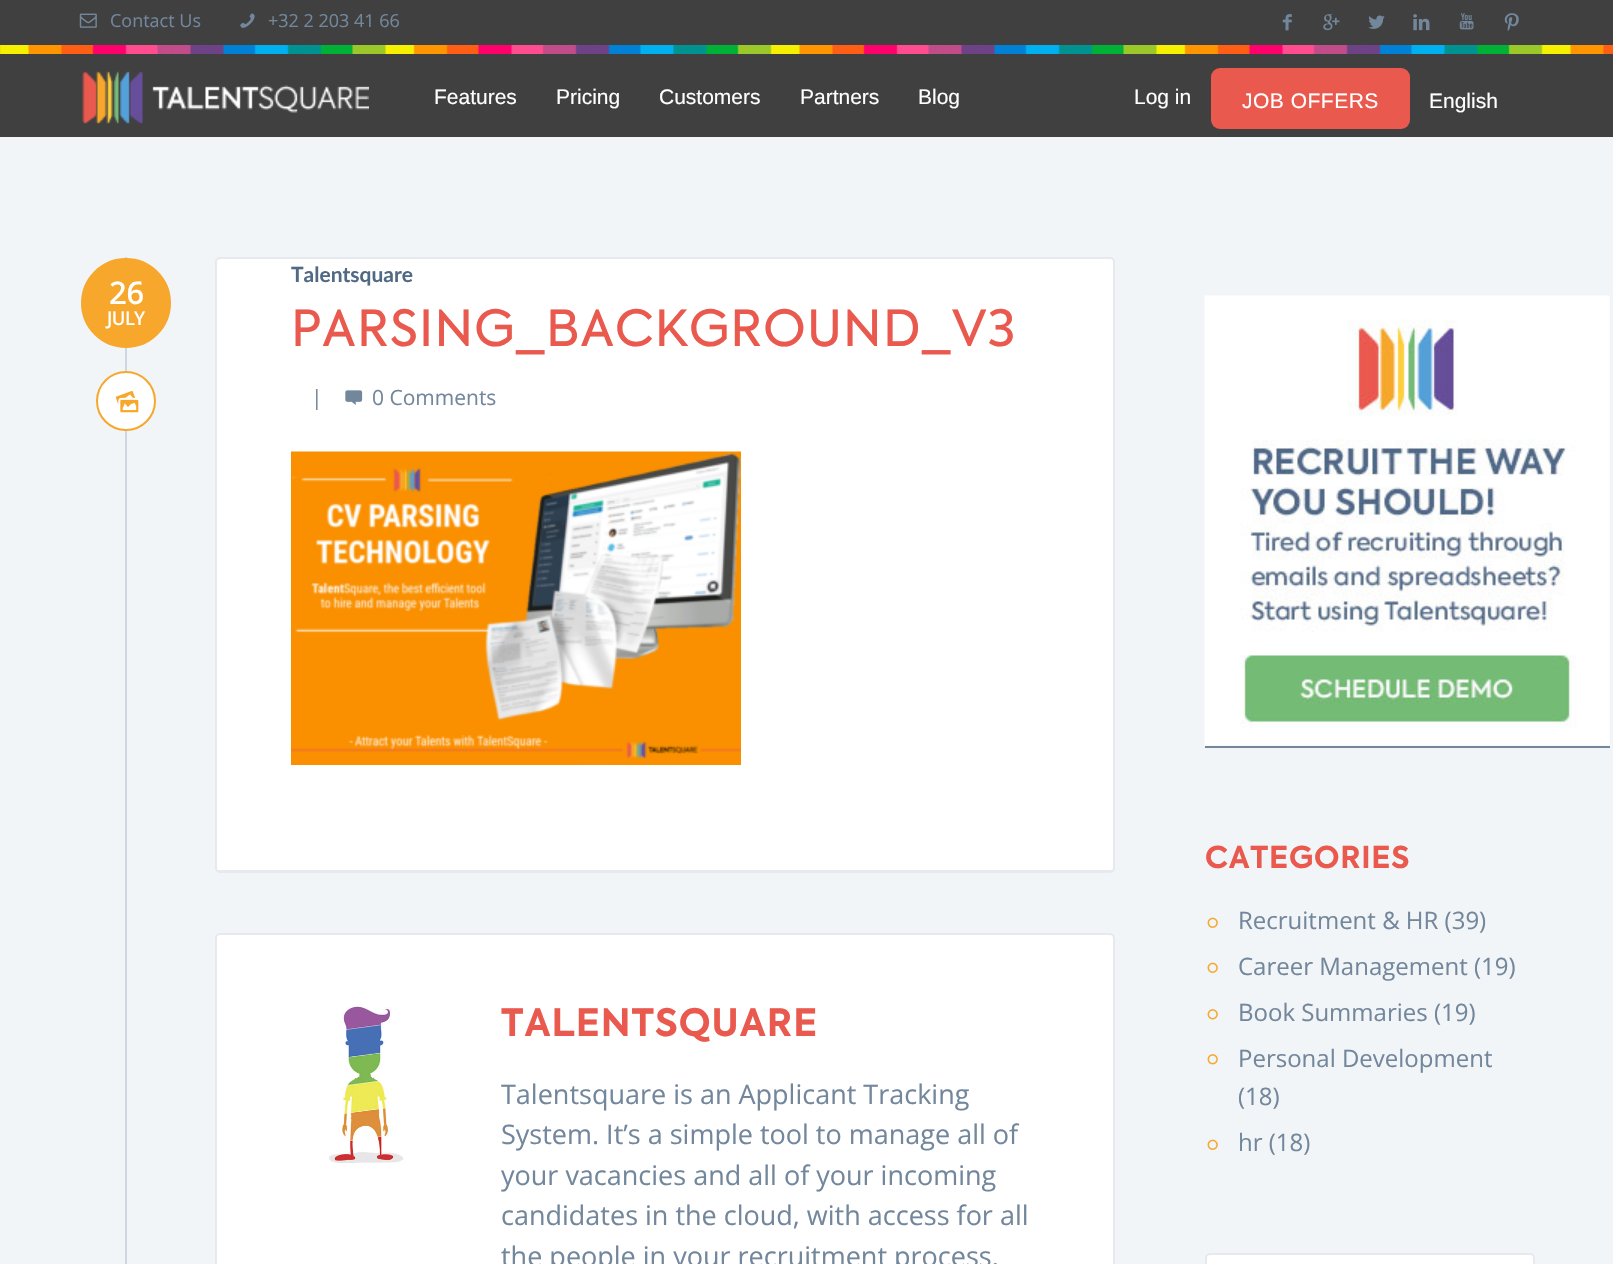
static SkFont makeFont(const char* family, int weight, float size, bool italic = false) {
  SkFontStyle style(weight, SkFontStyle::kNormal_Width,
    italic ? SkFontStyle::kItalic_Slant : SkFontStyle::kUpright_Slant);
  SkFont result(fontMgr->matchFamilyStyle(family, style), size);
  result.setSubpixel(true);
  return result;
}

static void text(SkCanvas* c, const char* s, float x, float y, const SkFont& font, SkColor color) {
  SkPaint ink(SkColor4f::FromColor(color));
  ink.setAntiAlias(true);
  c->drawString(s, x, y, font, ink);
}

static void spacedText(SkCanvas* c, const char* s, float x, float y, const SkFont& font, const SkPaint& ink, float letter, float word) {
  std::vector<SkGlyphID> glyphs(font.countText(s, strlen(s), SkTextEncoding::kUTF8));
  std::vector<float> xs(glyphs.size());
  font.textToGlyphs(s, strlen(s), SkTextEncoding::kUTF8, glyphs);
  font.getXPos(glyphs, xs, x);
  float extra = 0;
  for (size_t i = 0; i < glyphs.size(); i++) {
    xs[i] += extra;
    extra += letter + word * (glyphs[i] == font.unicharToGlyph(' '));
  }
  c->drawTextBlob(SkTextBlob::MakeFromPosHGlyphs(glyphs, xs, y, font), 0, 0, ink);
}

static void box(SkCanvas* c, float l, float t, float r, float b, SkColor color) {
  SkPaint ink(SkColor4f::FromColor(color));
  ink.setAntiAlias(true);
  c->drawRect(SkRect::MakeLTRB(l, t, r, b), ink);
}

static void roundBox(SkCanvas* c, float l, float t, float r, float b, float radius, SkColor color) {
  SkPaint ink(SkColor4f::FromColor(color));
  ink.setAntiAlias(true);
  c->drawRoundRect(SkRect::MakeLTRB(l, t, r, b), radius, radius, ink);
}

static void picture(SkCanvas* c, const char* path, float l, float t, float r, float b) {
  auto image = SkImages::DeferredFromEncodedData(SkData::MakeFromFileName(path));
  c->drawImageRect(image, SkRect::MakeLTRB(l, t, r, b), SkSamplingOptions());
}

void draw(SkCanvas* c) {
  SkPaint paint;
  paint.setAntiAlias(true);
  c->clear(0xfff2f5f7);
  box(c, 0, 0, 1613, 45, 0xff404040);
  picture(c, "img_01.png", 79, 13, 97, 28);
  SkFont face1 = makeFont("Open Sans", 400, 18);
  text(c, "Contact Us", 110, 27, face1, 0xff73879c);
  picture(c, "img_02.png", 240, 13, 255, 28);
  text(c, "+32 2 203 41 66", 268, 27, face1, 0xff73879c);
  picture(c, "img_03.png", 1282, 14, 1292, 31);
  picture(c, "img_04.png", 1323, 14, 1340, 31);
  picture(c, "img_05.png", 1368, 15, 1385, 29);
  picture(c, "img_06.png", 1413, 14, 1430, 31);
  picture(c, "img_07.png", 1459, 13, 1474, 30);
  picture(c, "img_08.png", 1504, 13, 1519, 31);
  box(c, 0, 54, 1613, 137, 0xff404040);
  picture(c, "img_09.png", 0, 45, 1613, 54);
  picture(c, "img_10.png", 82, 71, 369, 124);
  SkFont face2 = makeFont("Liberation Sans", 400, 21);
  text(c, "Features", 434, 104, face2, 0xffffffff);
  text(c, "Pricing", 556, 104, face2, 0xffffffff);
  text(c, "Customers", 659, 104, face2, 0xffffffff);
  text(c, "Partners", 800, 104, face2, 0xffffffff);
  text(c, "Blog", 918, 104, face2, 0xffffffff);
  text(c, "Log in", 1134, 104, face2, 0xffffffff);
  roundBox(c, 1211, 68, 1410, 129, 9, 0xffea594e);
  paint.setColor(0xffffffff);
  spacedText(c, "JOB OFFERS", 1242, 108, face2, paint, 0.5f, 0);
  text(c, "English", 1429, 108, face2, 0xffffffff);
  box(c, 125, 257, 127, 1264, 0xffced7e0);
  c->drawPath(SkPathBuilder().moveTo(219, 258).lineTo(1110, 258).cubicTo(1112, 258, 1113, 259, 1113, 261).lineTo(1113, 868).cubicTo(1113, 869, 1112, 870, 1110, 870).lineTo(219, 870).cubicTo(217, 870, 216, 869, 216, 868).lineTo(216, 261).cubicTo(216, 259, 217, 258, 219, 258).close().detach(), paint);
  paint.setStyle(SkPaint::kStroke_Style);
  paint.setStrokeWidth(2);
  paint.setColor(0xffe6e9ed);
  c->drawRoundRect(SkRect::MakeLTRB(216, 258, 1114, 872), 4, 4, paint);
  box(c, 218, 870, 1113, 871, 0xffe6e9ed);
  paint.setStyle(SkPaint::kFill_Style);
  paint.setColor(0xfff6a72c);
  c->drawCircle(126, 303, 44, paint);
  paint.setStyle(SkPaint::kStroke_Style);
  c->drawCircle(126, 303, 44, paint);
  SkFont face3 = makeFont("Open Sans", 700, 30);
  text(c, "26", 109, 304, face3, 0xffffffff);
  SkFont face4 = makeFont("Open Sans", 700, 18);
  text(c, "JULY", 107, 325, face4, 0xffffffff);
  SkFont face5 = makeFont("Lato", 700, 21);
  text(c, "Talentsquare", 291, 282, face5, 0xff506a85);
  SkFont face6 = makeFont("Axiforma", 400, 49.5f);
  paint.setStyle(SkPaint::kFill_Style);
  paint.setColor(0xffea594e);
  spacedText(c, "PARSING_BACKGROUND_V3", 291, 346, face6, paint, 1.25f, 0);
  SkFont face7 = makeFont("Open Sans", 400, 21);
  text(c, "|", 311, 405, face7, 0xff73879c);
  picture(c, "img_11.png", 345, 390, 363, 405);
  text(c, "0 Comments", 372, 405, face7, 0xff73879c);
  picture(c, "img_12.png", 291, 451, 741, 765);
  paint.setColor(0xffffffff);
  c->drawCircle(126, 401, 29, paint);
  paint.setStyle(SkPaint::kStroke_Style);
  paint.setColor(0xfff6a72c);
  c->drawCircle(126, 401, 29, paint);
  picture(c, "img_13.png", 115, 390, 139, 413);
  paint.setStyle(SkPaint::kFill_Style);
  paint.setColor(0xffffffff);
  c->drawPath(SkPathBuilder().moveTo(219, 934).lineTo(1110, 934).cubicTo(1112, 934, 1113, 936, 1113, 938).lineTo(1113, 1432).cubicTo(1113, 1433, 1112, 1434, 1110, 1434).lineTo(219, 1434).cubicTo(217, 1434, 216, 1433, 216, 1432).lineTo(216, 938).cubicTo(216, 936, 217, 934, 219, 934).close().detach(), paint);
  paint.setStyle(SkPaint::kStroke_Style);
  paint.setColor(0xffe6e9ed);
  c->drawRoundRect(SkRect::MakeLTRB(216, 934, 1114, 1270), 4, 4, paint);
  picture(c, "img_14.png", 329, 1006, 404, 1163);
  SkFont face8 = makeFont("Axiforma", 700, 37.5f);
  paint.setStyle(SkPaint::kFill_Style);
  paint.setColor(0xffea594e);
  spacedText(c, "TALENTSQUARE", 501, 1036, face8, paint, 1, 0);
  SkFont face9 = makeFont("Open Sans", 400, 27);
  text(c, "Talentsquare is an Applicant Tracking", 501, 1104, face9, 0xff73879c);
  text(c, "System. It’s a simple tool to manage all of", 501, 1144, face9, 0xff73879c);
  text(c, "your vacancies and all of your incoming", 501, 1185, face9, 0xff73879c);
  text(c, "candidates in the cloud, with access for all", 501, 1225, face9, 0xff73879c);
  text(c, "the people in your recruitment process.", 501, 1266, face9, 0xff73879c);
  picture(c, "img_15.png", 1204, 295, 1610, 746);
  box(c, 1205, 746, 1610, 748, 0xff73879c);
  SkFont face10 = makeFont("Axiforma", 700, 30);
  spacedText(c, "CATEGORIES", 1205, 868, face10, paint, 0.75f, 0);
  picture(c, "img_16.png", 1207, 917, 1218, 928);
  SkFont face11 = makeFont("Open Sans", 400, 24);
  text(c, "Recruitment & HR (39)", 1238, 929, face11, 0xff73879c);
  picture(c, "img_16.png", 1207, 962, 1218, 973);
  text(c, "Career Management (19)", 1238, 975, face11, 0xff73879c);
  picture(c, "img_17.png", 1207, 1009, 1218, 1020);
  text(c, "Book Summaries (19)", 1238, 1021, face11, 0xff73879c);
  picture(c, "img_17.png", 1207, 1054, 1218, 1065);
  text(c, "Personal Development", 1238, 1067, face11, 0xff73879c);
  text(c, "(18)", 1238, 1105, face11, 0xff73879c);
  picture(c, "img_16.png", 1207, 1139, 1218, 1150);
  text(c, "hr (18)", 1238, 1151, face11, 0xff73879c);
  paint.setColor(0xffffffff);
  c->drawPath(SkPathBuilder().moveTo(1209, 1254).lineTo(1530, 1254).cubicTo(1532, 1254, 1533, 1255, 1533, 1257).lineTo(1533, 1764).cubicTo(1533, 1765, 1532, 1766, 1530, 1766).lineTo(1209, 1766).cubicTo(1207, 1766, 1206, 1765, 1206, 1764).lineTo(1206, 1257).cubicTo(1206, 1255, 1207, 1254, 1209, 1254).close().detach(), paint);
  paint.setStyle(SkPaint::kStroke_Style);
  paint.setColor(0xffe6e9ed);
  c->drawRoundRect(SkRect::MakeLTRB(1206, 1254, 1534, 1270), 4, 4, paint);
}
